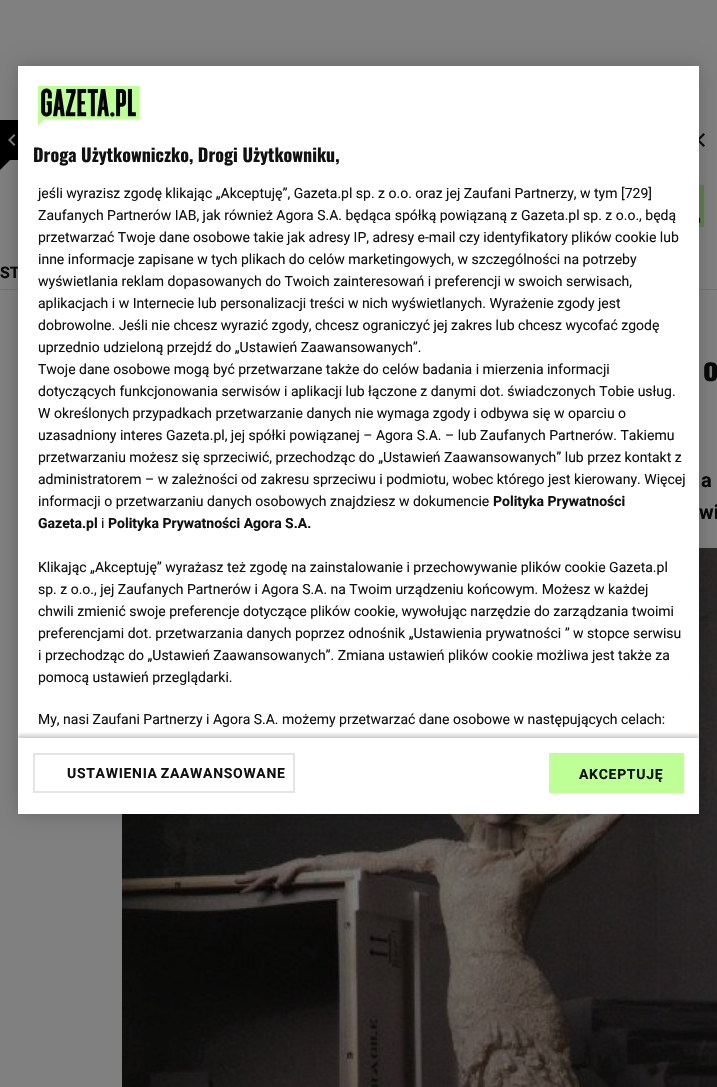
static SkFont makeFont(const char* family, int weight, float size, bool italic = false) {
  SkFontStyle style(weight, SkFontStyle::kNormal_Width,
    italic ? SkFontStyle::kItalic_Slant : SkFontStyle::kUpright_Slant);
  SkFont result(fontMgr->matchFamilyStyle(family, style), size);
  result.setSubpixel(true);
  return result;
}

static void text(SkCanvas* c, const char* s, float x, float y, const SkFont& font, SkColor color) {
  SkPaint ink(SkColor4f::FromColor(color));
  ink.setAntiAlias(true);
  c->drawString(s, x, y, font, ink);
}

static void spacedText(SkCanvas* c, const char* s, float x, float y, const SkFont& font, const SkPaint& ink, float letter, float word) {
  std::vector<SkGlyphID> glyphs(font.countText(s, strlen(s), SkTextEncoding::kUTF8));
  std::vector<float> xs(glyphs.size());
  font.textToGlyphs(s, strlen(s), SkTextEncoding::kUTF8, glyphs);
  font.getXPos(glyphs, xs, x);
  float extra = 0;
  for (size_t i = 0; i < glyphs.size(); i++) {
    xs[i] += extra;
    extra += letter + word * (glyphs[i] == font.unicharToGlyph(' '));
  }
  c->drawTextBlob(SkTextBlob::MakeFromPosHGlyphs(glyphs, xs, y, font), 0, 0, ink);
}

static void box(SkCanvas* c, float l, float t, float r, float b, SkColor color) {
  SkPaint ink(SkColor4f::FromColor(color));
  ink.setAntiAlias(true);
  c->drawRect(SkRect::MakeLTRB(l, t, r, b), ink);
}

static void picture(SkCanvas* c, const char* path, float l, float t, float r, float b) {
  auto image = SkImages::DeferredFromEncodedData(SkData::MakeFromFileName(path));
  c->drawImageRect(image, SkRect::MakeLTRB(l, t, r, b), SkSamplingOptions());
}

void draw(SkCanvas* c) {
  SkPaint paint;
  paint.setAntiAlias(true);
  c->clear(0xff808080);
  box(c, 0, 120, 18, 160, 0xff000000);
  picture(c, "img_01.png", 8, 134, 16, 146);
  paint.setColor(0xff090909);
  c->drawPath(SkPathBuilder().moveTo(705, 134.5f).lineTo(703.5f, 133).lineTo(698, 138.5f).lineTo(692.5f, 133).lineTo(691, 134.5f).lineTo(696.5f, 140).lineTo(691, 145.5f).lineTo(692.5f, 147).lineTo(698, 141.5f).lineTo(703.5f, 147).lineTo(705, 145.5f).lineTo(699.5f, 140).close().detach(), paint);
  paint.setColor(0xff000000);
  c->drawPath(SkPathBuilder().moveTo(0, 160).lineTo(10, 160).lineTo(0, 170).close().detach(), paint);
  box(c, 0, 289, 717, 290, 0xff737373);
  picture(c, "img_02.png", 699, 185, 704, 227);
  SkFont face1 = makeFont("Roboto", 700, 16);
  paint.setColor(0xff090909);
  spacedText(c, "ST", 0, 278, face1, paint, 0, -1);
  picture(c, "img_04.png", 122, 548, 717, 1087);
  paint.setColor(0x33000000);
  paint.setMaskFilter(SkMaskFilter::MakeBlur(kNormal_SkBlurStyle, 9));
  c->drawRect(SkRect::MakeLTRB(18, 66, 699, 814), paint);
  paint.setMaskFilter(nullptr);
  box(c, 18, 66, 699, 814, 0xffffffff);
  picture(c, "img_03.png", 38, 86, 139, 126);
  SkFont face2 = makeFont("Oswald", 700, 18);
  text(c, "Droga Użytkowniczko, Drogi Użytkowniku,", 33, 162, face2, 0xff111111);
  SkFont face3 = makeFont("Roboto", 400, 14);
  text(c, "jeśli wyrazisz zgodę klikając „Akceptuję”, Gazeta.pl sp. z o.o. oraz jej Zaufani Partnerzy, w tym [729]", 38, 198, face3, 0xff111111);
  text(c, "Zaufanych Partnerów IAB, jak również Agora S.A. będąca spółką powiązaną z Gazeta.pl sp. z o.o., będą", 38, 220, face3, 0xff111111);
  text(c, "przetwarzać Twoje dane osobowe takie jak adresy IP, adresy e-mail czy identyfikatory plików cookie lub", 38, 242, face3, 0xff111111);
  text(c, "inne informacje zapisane w tych plikach do celów marketingowych, w szczególności na potrzeby", 38, 264, face3, 0xff111111);
  text(c, "wyświetlania reklam dopasowanych do Twoich zainteresowań i preferencji w swoich serwisach,", 38, 286, face3, 0xff111111);
  text(c, "aplikacjach i w Internecie lub personalizacji treści w nich wyświetlanych. Wyrażenie zgody jest", 38, 308, face3, 0xff111111);
  text(c, "dobrowolne. Jeśli nie chcesz wyrazić zgody, chcesz ograniczyć jej zakres lub chcesz wycofać zgodę", 38, 330, face3, 0xff111111);
  text(c, "uprzednio udzieloną przejdź do „Ustawień Zaawansowanych”.", 38, 352, face3, 0xff111111);
  text(c, "Twoje dane osobowe mogą być przetwarzane także do celów badania i mierzenia informacji", 38, 374, face3, 0xff111111);
  text(c, "dotyczących funkcjonowania serwisów i aplikacji lub łączone z danymi dot. świadczonych Tobie usług.", 38, 396, face3, 0xff111111);
  text(c, "W określonych przypadkach przetwarzanie danych nie wymaga zgody i odbywa się w oparciu o", 38, 418, face3, 0xff111111);
  text(c, "uzasadniony interes Gazeta.pl, jej spółki powiązanej – Agora S.A. – lub Zaufanych Partnerów. Takiemu", 38, 440, face3, 0xff111111);
  text(c, "przetwarzaniu możesz się sprzeciwić, przechodząc do „Ustawień Zaawansowanych” lub przez kontakt z", 38, 462, face3, 0xff111111);
  text(c, "administratorem – w zależności od zakresu sprzeciwu i podmiotu, wobec którego jest kierowany. Więcej", 38, 484, face3, 0xff111111);
  text(c, "informacji o przetwarzaniu danych osobowych znajdziesz w dokumencie", 38, 506, face3, 0xff111111);
  SkFont face4 = makeFont("Roboto", 700, 14);
  text(c, "Polityka Prywatności", 493, 506, face4, 0xff111111);
  text(c, "Gazeta.pl", 38, 528, face4, 0xff111111);
  text(c, "i", 101, 528, face3, 0xff111111);
  text(c, "Polityka Prywatności Agora S.A.", 108, 528, face4, 0xff111111);
  text(c, "Klikając „Akceptuję” wyrażasz też zgodę na zainstalowanie i przechowywanie plików cookie Gazeta.pl", 38, 572, face3, 0xff111111);
  text(c, "sp. z o.o., jej Zaufanych Partnerów i Agora S.A. na Twoim urządzeniu końcowym. Możesz w każdej", 38, 594, face3, 0xff111111);
  text(c, "chwili zmienić swoje preferencje dotyczące plików cookie, wywołując narzędzie do zarządzania twoimi", 38, 616, face3, 0xff111111);
  text(c, "preferencjami dot. przetwarzania danych poprzez odnośnik „Ustawienia prywatności ” w stopce serwisu", 38, 638, face3, 0xff111111);
  text(c, "i przechodząc do „Ustawień Zaawansowanych”. Zmiana ustawień plików cookie możliwa jest także za", 38, 660, face3, 0xff111111);
  text(c, "pomocą ustawień przeglądarki.", 38, 682, face3, 0xff111111);
  text(c, "My, nasi Zaufani Partnerzy i Agora S.A. możemy przetwarzać dane osobowe w następujących celach:", 38, 724, face3, 0xff111111);
  c->save();
  c->clipRect(SkRect::MakeLTRB(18, 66, 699, 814));
  c->clipRect(SkRect::MakeLTRB(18, 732, 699, 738));
  paint.setMaskFilter(SkMaskFilter::MakeBlur(kNormal_SkBlurStyle, 2));
  c->drawRect(SkRect::MakeLTRB(18, 735, 699, 811), paint);
  paint.setMaskFilter(nullptr);
  c->restore();
  paint.setStyle(SkPaint::kStroke_Style);
  paint.setStrokeWidth(2);
  paint.setColor(0xffe5e5e5);
  c->drawRect(SkRect::MakeLTRB(34, 754, 294, 792), paint);
  paint.setStyle(SkPaint::kFill_Style);
  paint.setColor(0xff111111);
  spacedText(c, "USTAWIENIA ZAAWANSOWANE", 67, 778, face4, paint, 0.7f, -1);
  box(c, 549, 753, 684, 793, 0xffbeff96);
  spacedText(c, "AKCEPTUJĘ", 579, 779, face4, paint, 0.7f, 0);
  SkFont face5 = makeFont("Oswald", 700, 32);
  text(c, "o", 703, 381, face5, 0xff090909);
  SkFont face6 = makeFont("Roboto", 700, 20);
  paint.setColor(0xff090909);
  spacedText(c, "a", 701, 487, face6, paint, 0, -1);
  spacedText(c, "wi", 699, 519, face6, paint, 0, -1);
}
